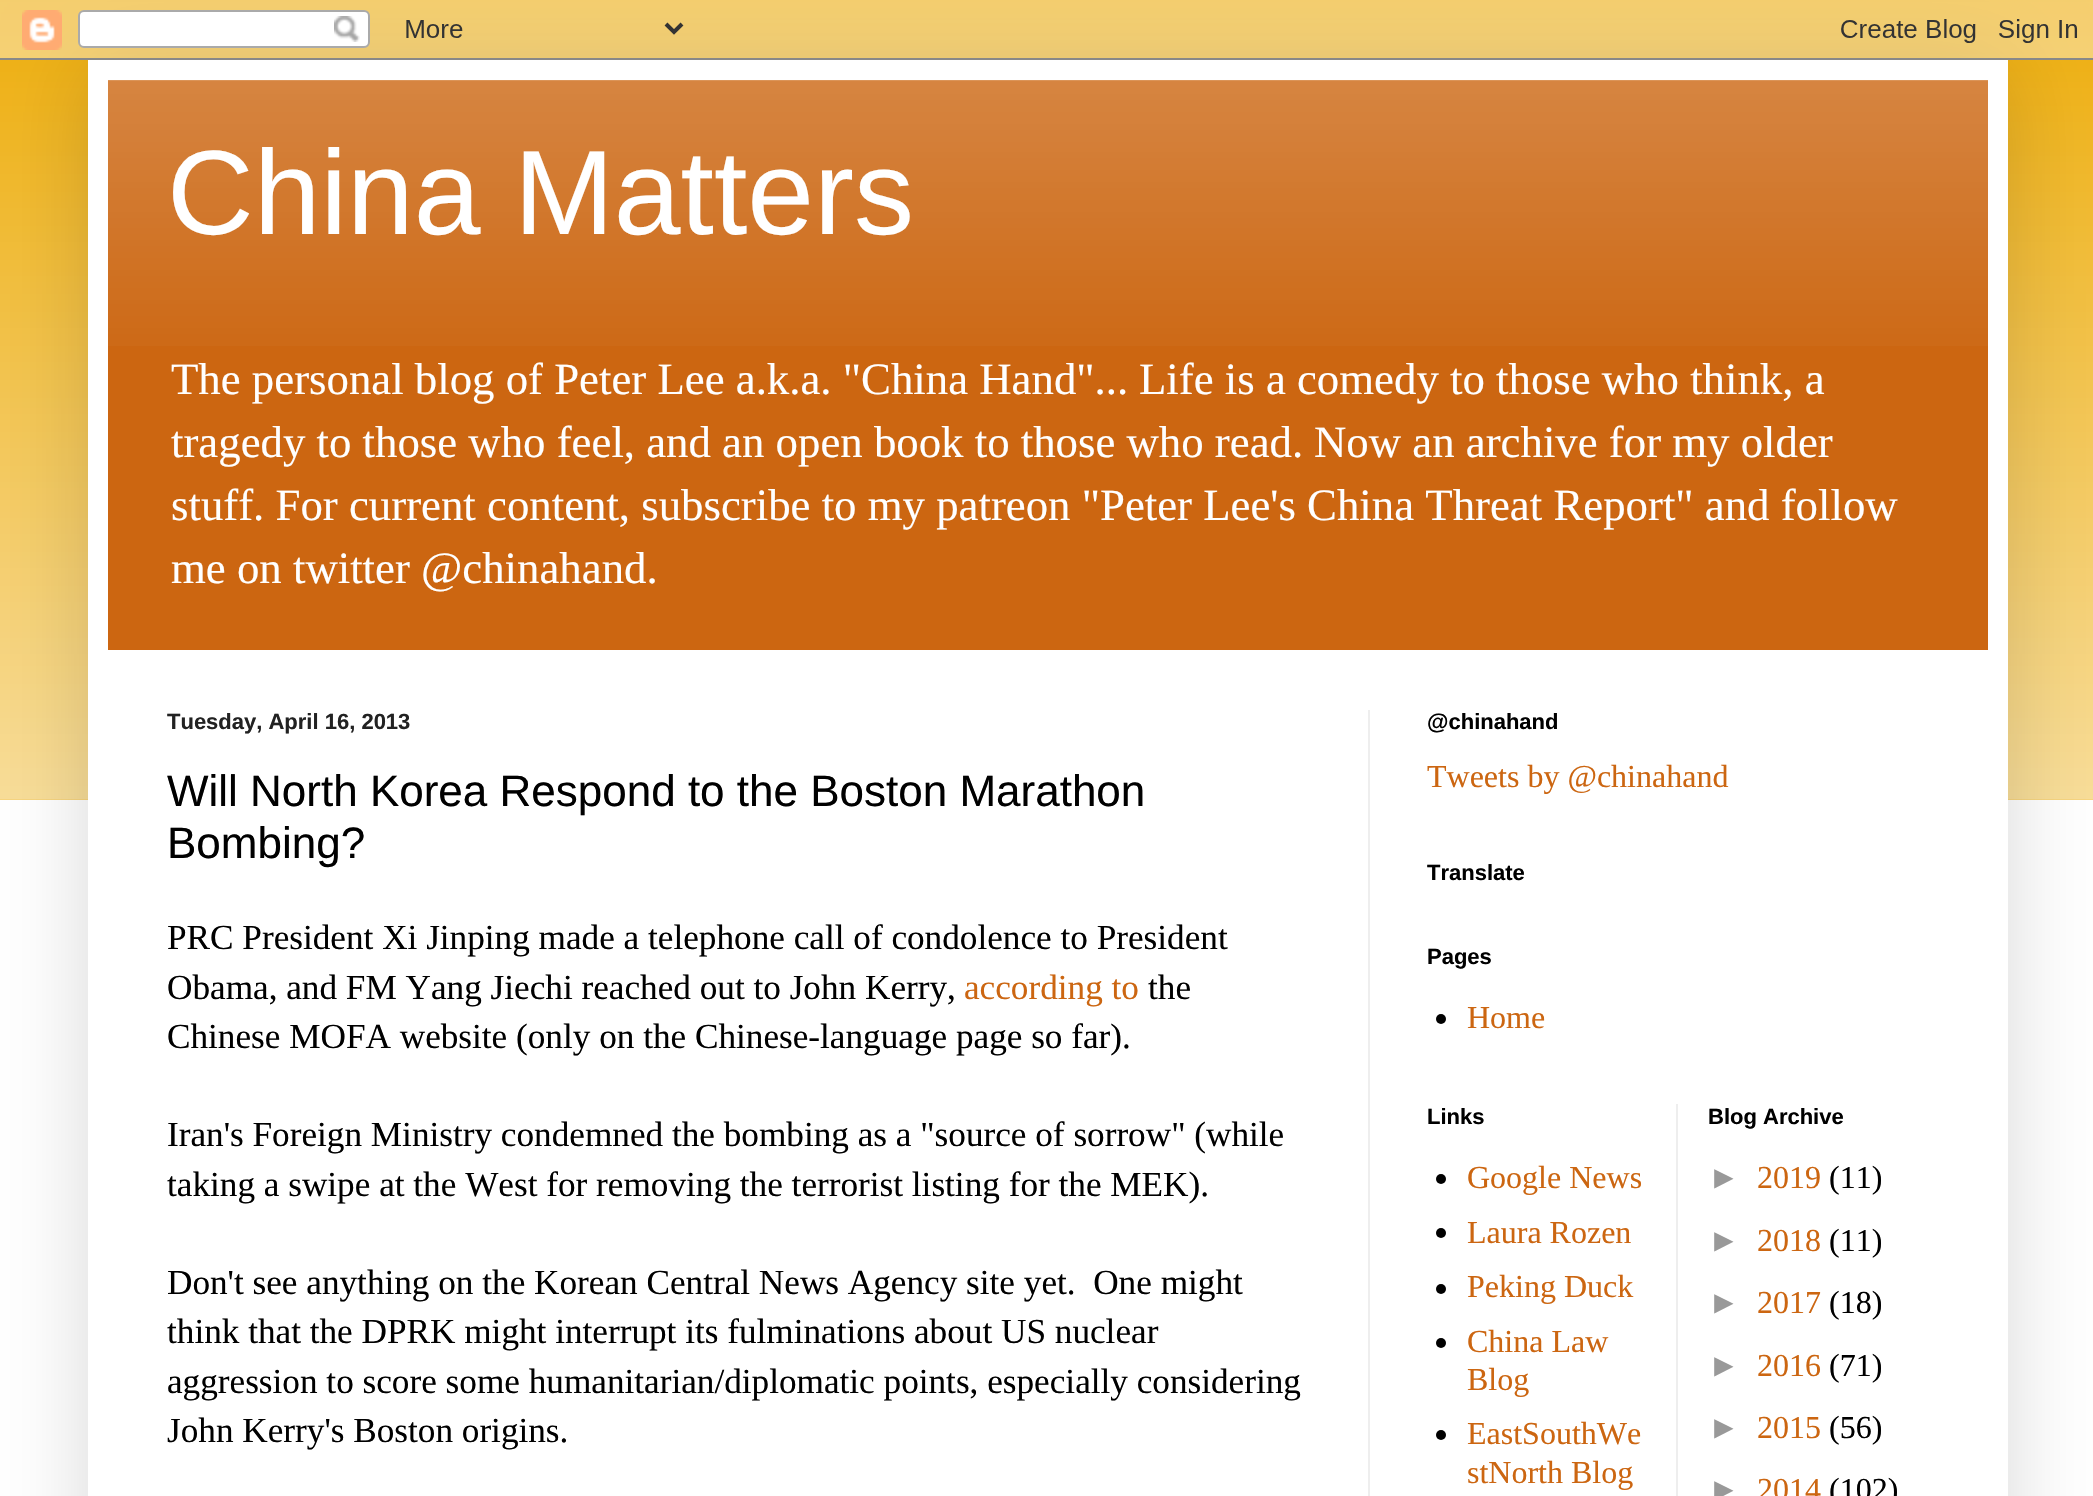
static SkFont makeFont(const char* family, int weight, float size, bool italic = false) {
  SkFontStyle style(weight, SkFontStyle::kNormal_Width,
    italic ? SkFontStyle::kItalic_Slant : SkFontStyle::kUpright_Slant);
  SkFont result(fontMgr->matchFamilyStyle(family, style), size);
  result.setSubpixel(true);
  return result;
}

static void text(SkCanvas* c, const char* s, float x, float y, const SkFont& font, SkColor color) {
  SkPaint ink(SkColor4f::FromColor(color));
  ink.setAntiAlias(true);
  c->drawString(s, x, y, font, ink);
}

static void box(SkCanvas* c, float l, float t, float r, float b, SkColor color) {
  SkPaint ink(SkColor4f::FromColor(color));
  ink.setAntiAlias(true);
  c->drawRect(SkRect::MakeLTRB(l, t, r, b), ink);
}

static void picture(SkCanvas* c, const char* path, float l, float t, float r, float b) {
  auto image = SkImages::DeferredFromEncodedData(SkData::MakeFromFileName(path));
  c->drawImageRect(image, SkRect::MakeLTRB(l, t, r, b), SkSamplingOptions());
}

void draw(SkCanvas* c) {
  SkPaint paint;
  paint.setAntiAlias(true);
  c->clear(0xffffffff);
  box(c, 0, 0, 2093, 800, 0xffeeaa00);
  picture(c, "img_01.png", 0, 0, 2093, 800);
  paint.setColor(0x26000000);
  paint.setMaskFilter(SkMaskFilter::MakeBlur(kNormal_SkBlurStyle, 40));
  c->drawRect(SkRect::MakeLTRB(88, 60, 2008, 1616), paint);
  paint.setMaskFilter(nullptr);
  picture(c, "img_02.png", 0, 0, 2093, 60);
  box(c, 88, 60, 2008, 1496, 0xffffffff);
  box(c, 108, 80, 1988, 650, 0xffcc6611);
  picture(c, "img_03.png", 108, 80, 1988, 346);
  SkFont face1 = makeFont("Liberation Sans", 400, 120);
  text(c, "China Matters", 167, 234, face1, 0xffffffff);
  SkFont face2 = makeFont("Liberation Serif", 400, 44.8f);
  text(c, "The personal blog of Peter Lee a.k.a. \"China Hand\"...", 171, 394, face2, 0xffffffff);
  text(c, "Life is a comedy to those who think, a", 1139, 394, face2, 0xffffffff);
  text(c, "tragedy to those who feel, and an open book to those who read.", 171, 457, face2, 0xffffffff);
  text(c, "Now an archive for my older", 1314, 457, face2, 0xffffffff);
  text(c, "stuff. For current content, subscribe to my patreon \"Peter Lee's China Threat Report\" and follow", 171, 520, face2, 0xffffffff);
  text(c, "me on twitter @chinahand.", 171, 583, face2, 0xffffffff);
  box(c, 1368, 710, 1370, 1496, 0xffeeeeee);
  SkFont face3 = makeFont("Liberation Sans", 700, 22);
  text(c, "Tuesday, April 16, 2013", 167, 729, face3, 0xff222222);
  SkFont face4 = makeFont("Liberation Sans", 400, 44);
  text(c, "Will North Korea Respond to the Boston Marathon", 167, 806, face4, 0xff000000);
  text(c, "Bombing?", 167, 858, face4, 0xff000000);
  SkFont face5 = makeFont("Liberation Serif", 400, 35.2f);
  text(c, "PRC President Xi Jinping made a telephone call of condolence to President", 167, 949, face5, 0xff000000);
  text(c, "Obama, and FM Yang Jiechi reached out to John Kerry,", 167, 999, face5, 0xff000000);
  text(c, "according to", 964, 999, face5, 0xffcc6611);
  text(c, "the", 1148, 999, face5, 0xff000000);
  text(c, "Chinese MOFA website (only on the Chinese-language page so far).", 167, 1048, face5, 0xff000000);
  text(c, "Iran's Foreign Ministry condemned the bombing as a \"source of sorrow\" (while", 167, 1146, face5, 0xff000000);
  text(c, "taking a swipe at the West for removing the terrorist listing for the MEK).", 167, 1196, face5, 0xff000000);
  text(c, "Don't see anything on the Korean Central News Agency site yet.  One might", 167, 1294, face5, 0xff000000);
  text(c, "think that the DPRK might interrupt its fulminations about US nuclear", 167, 1343, face5, 0xff000000);
  text(c, "aggression to score some humanitarian/diplomatic points, especially considering", 167, 1393, face5, 0xff000000);
  text(c, "John Kerry's Boston origins.", 167, 1442, face5, 0xff000000);
  text(c, "@chinahand", 1427, 729, face3, 0xff000000);
  SkFont face6 = makeFont("Liberation Serif", 400, 32);
  text(c, "Tweets by @chinahand", 1427, 787, face6, 0xffcc6611);
  text(c, "Translate", 1427, 880, face3, 0xff000000);
  text(c, "Pages", 1427, 964, face3, 0xff000000);
  paint.setColor(0xff000000);
  c->drawCircle(1441, 1019, 5, paint);
  text(c, "Home", 1467, 1028, face6, 0xffcc6611);
  text(c, "Links", 1427, 1124, face3, 0xff000000);
  c->drawCircle(1441, 1179, 5, paint);
  text(c, "Google News", 1467, 1188, face6, 0xffcc6611);
  c->drawCircle(1441, 1233, 5, paint);
  text(c, "Laura Rozen", 1467, 1243, face6, 0xffcc6611);
  c->drawCircle(1441, 1289, 5, paint);
  text(c, "Peking Duck", 1467, 1297, face6, 0xffcc6611);
  c->drawCircle(1441, 1343, 5, paint);
  text(c, "China Law", 1467, 1352, face6, 0xffcc6611);
  text(c, "Blog", 1467, 1390, face6, 0xffcc6611);
  c->drawCircle(1441, 1435, 5, paint);
  text(c, "EastSouthWe", 1467, 1444, face6, 0xffcc6611);
  text(c, "stNorth Blog", 1467, 1483, face6, 0xffcc6611);
  box(c, 1676, 1104, 1678, 1496, 0xffeeeeee);
  text(c, "Blog Archive", 1708, 1124, face3, 0xff000000);
  SkFont face7 = makeFont("Liberation Sans", 400, 32);
  text(c, "►", 1708, 1188, face7, 0xff999999);
  text(c, "2019", 1757, 1188, face6, 0xffcc6611);
  text(c, "(11)", 1829, 1188, face6, 0xff000000);
  text(c, "►", 1708, 1251, face7, 0xff999999);
  text(c, "2018", 1757, 1251, face6, 0xffcc6611);
  text(c, "(11)", 1829, 1251, face6, 0xff000000);
  text(c, "►", 1708, 1313, face7, 0xff999999);
  text(c, "2017", 1757, 1313, face6, 0xffcc6611);
  text(c, "(18)", 1829, 1313, face6, 0xff000000);
  text(c, "►", 1708, 1376, face7, 0xff999999);
  text(c, "2016", 1757, 1376, face6, 0xffcc6611);
  text(c, "(71)", 1829, 1376, face6, 0xff000000);
  text(c, "►", 1708, 1438, face7, 0xff999999);
  text(c, "2015", 1757, 1438, face6, 0xffcc6611);
  text(c, "(56)", 1829, 1438, face6, 0xff000000);
  text(c, "►", 1708, 1500, face7, 0xff999999);
  text(c, "2014", 1757, 1500, face6, 0xffcc6611);
  text(c, "(102)", 1829, 1500, face6, 0xff000000);
}
